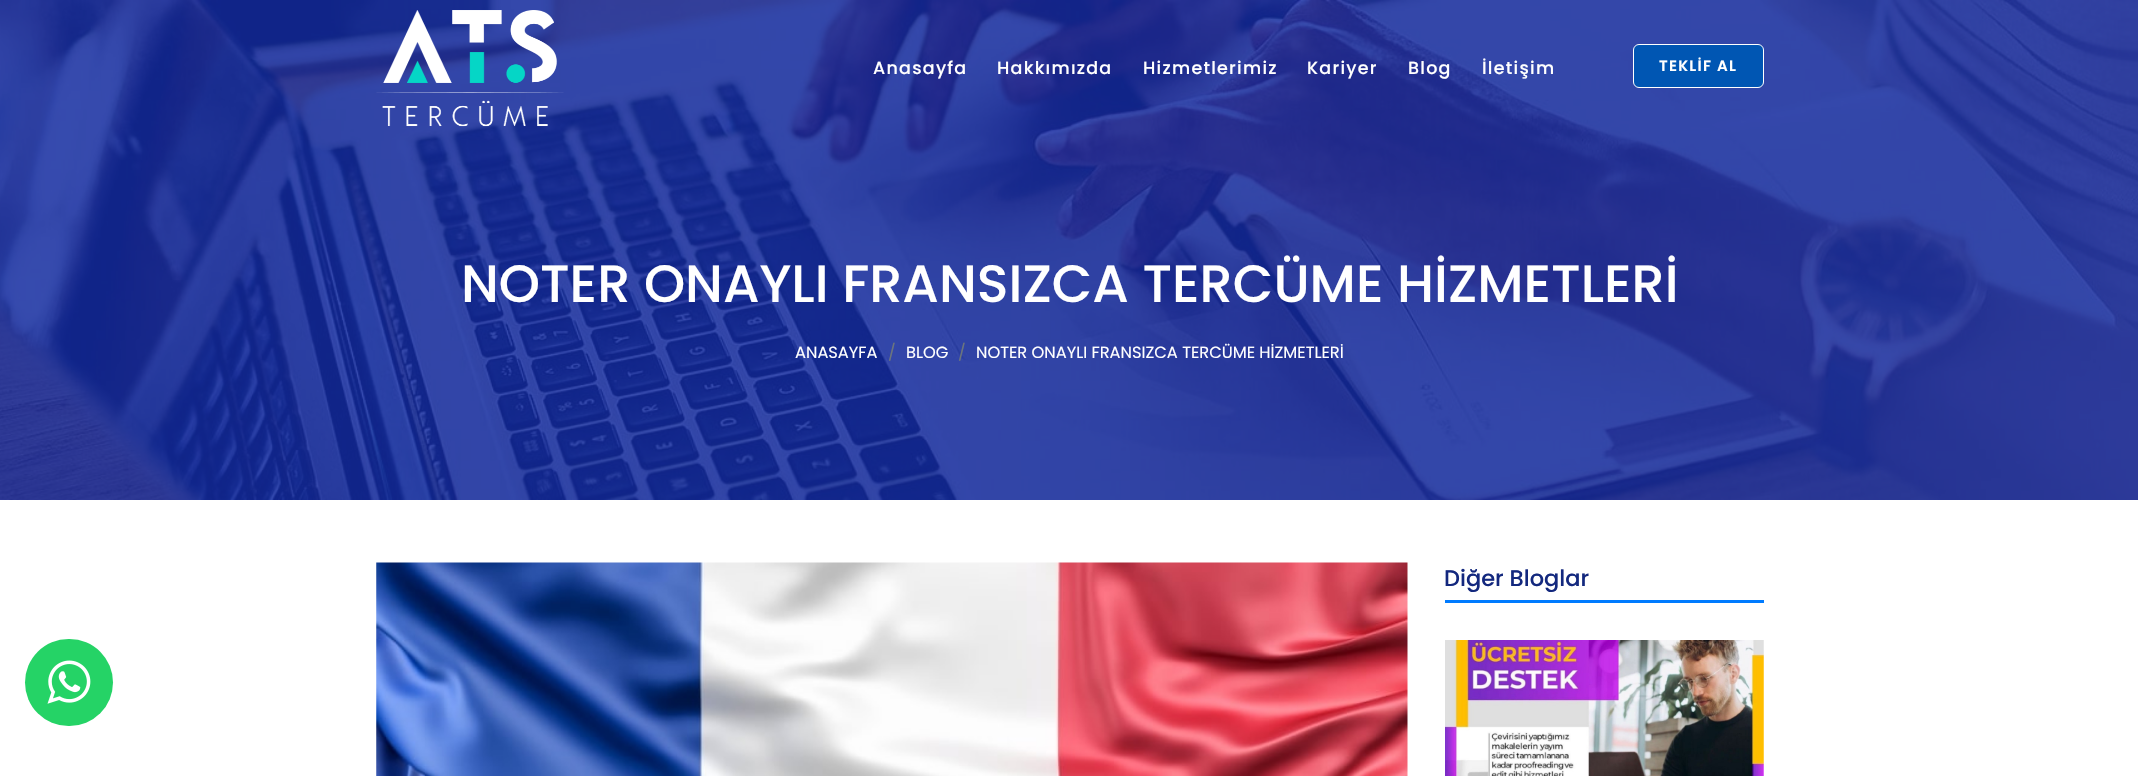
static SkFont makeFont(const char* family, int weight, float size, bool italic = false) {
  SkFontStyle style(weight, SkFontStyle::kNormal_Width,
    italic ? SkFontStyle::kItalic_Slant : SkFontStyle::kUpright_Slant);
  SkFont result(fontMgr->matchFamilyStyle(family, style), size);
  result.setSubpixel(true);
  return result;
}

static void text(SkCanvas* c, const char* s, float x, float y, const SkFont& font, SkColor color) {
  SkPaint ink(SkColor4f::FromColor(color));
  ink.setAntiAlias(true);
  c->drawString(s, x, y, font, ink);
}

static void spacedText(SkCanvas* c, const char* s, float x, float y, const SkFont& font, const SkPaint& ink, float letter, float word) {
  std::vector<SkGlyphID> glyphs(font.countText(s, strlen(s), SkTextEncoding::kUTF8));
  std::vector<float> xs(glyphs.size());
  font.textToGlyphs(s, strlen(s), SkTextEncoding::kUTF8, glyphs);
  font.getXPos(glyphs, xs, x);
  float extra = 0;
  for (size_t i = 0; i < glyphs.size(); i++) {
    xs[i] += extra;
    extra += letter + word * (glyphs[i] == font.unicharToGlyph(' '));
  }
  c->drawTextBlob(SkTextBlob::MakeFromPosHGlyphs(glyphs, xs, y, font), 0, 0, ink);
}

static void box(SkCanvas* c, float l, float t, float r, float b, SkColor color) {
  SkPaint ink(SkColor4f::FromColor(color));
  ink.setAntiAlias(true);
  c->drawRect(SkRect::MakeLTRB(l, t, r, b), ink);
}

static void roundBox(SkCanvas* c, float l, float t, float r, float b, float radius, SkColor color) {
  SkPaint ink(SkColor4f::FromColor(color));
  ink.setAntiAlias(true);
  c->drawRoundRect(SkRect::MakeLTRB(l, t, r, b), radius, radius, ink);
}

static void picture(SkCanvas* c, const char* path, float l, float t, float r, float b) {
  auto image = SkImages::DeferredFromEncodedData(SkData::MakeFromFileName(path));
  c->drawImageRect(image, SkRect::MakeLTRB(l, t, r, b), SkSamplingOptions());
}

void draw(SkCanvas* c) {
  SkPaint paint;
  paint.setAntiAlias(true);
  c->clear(0xffffffff);
  picture(c, "img_02.png", 0, 0, 2138, 500);
  picture(c, "img_01.png", 376, 10, 564, 127);
  SkFont face1 = makeFont("Poppins", 500, 17.5f);
  paint.setColor(0xffffffff);
  spacedText(c, "Anasayfa", 873, 74, face1, paint, 1.25f, 0);
  spacedText(c, "Hakkımızda", 997, 74, face1, paint, 1.25f, 0);
  spacedText(c, "Hizmetlerimiz", 1143, 74, face1, paint, 1.25f, 0);
  spacedText(c, "Kariyer", 1307, 74, face1, paint, 1.25f, 0);
  spacedText(c, "Blog", 1408, 74, face1, paint, 1.25f, 0);
  spacedText(c, "İletişim", 1482, 74, face1, paint, 1.25f, 0);
  paint.setColor(0xff0056b3);
  c->drawRoundRect(SkRect::MakeLTRB(1633.5f, 44.5f, 1763.5f, 87.5f), 5.5f, 5.5f, paint);
  paint.setStyle(SkPaint::kStroke_Style);
  paint.setStrokeWidth(1);
  paint.setColor(0xffffffff);
  c->drawRoundRect(SkRect::MakeLTRB(1633.5f, 44.5f, 1763.5f, 87.5f), 5.5f, 5.5f, paint);
  SkFont face2 = makeFont("Poppins", 600, 15);
  paint.setStyle(SkPaint::kFill_Style);
  spacedText(c, "TEKLİF AL", 1659, 71, face2, paint, 1.25f, 0);
  SkFont face3 = makeFont("Poppins", 500, 52.5f);
  text(c, "NOTER ONAYLI FRANSIZCA TERCÜME HİZMETLERİ", 461, 302, face3, 0xffffffff);
  SkFont face4 = makeFont("Poppins", 400, 16.25f);
  text(c, "ANASAYFA", 795, 358, face4, 0xffffffff);
  text(c, "/", 888, 358, face4, 0xff6c757d);
  text(c, "BLOG", 906, 358, face4, 0xffffffff);
  text(c, "/", 958, 358, face4, 0xff6c757d);
  text(c, "NOTER ONAYLI FRANSIZCA TERCÜME HİZMETLERİ", 976, 358, face4, 0xffffffff);
  picture(c, "img_03.png", 376, 562, 1408, 776);
  box(c, 1445, 600, 1764, 603, 0xff007bff);
  SkFont face5 = makeFont("Poppins", 500, 22.5f);
  text(c, "Diğer Bloglar", 1444, 586, face5, 0xff13287e);
  picture(c, "img_04.png", 1445, 640, 1764, 776);
  roundBox(c, 25, 639, 113, 726, 43.5f, 0xff25d366);
  picture(c, "img_05.png", 47, 660, 91, 704);
}
